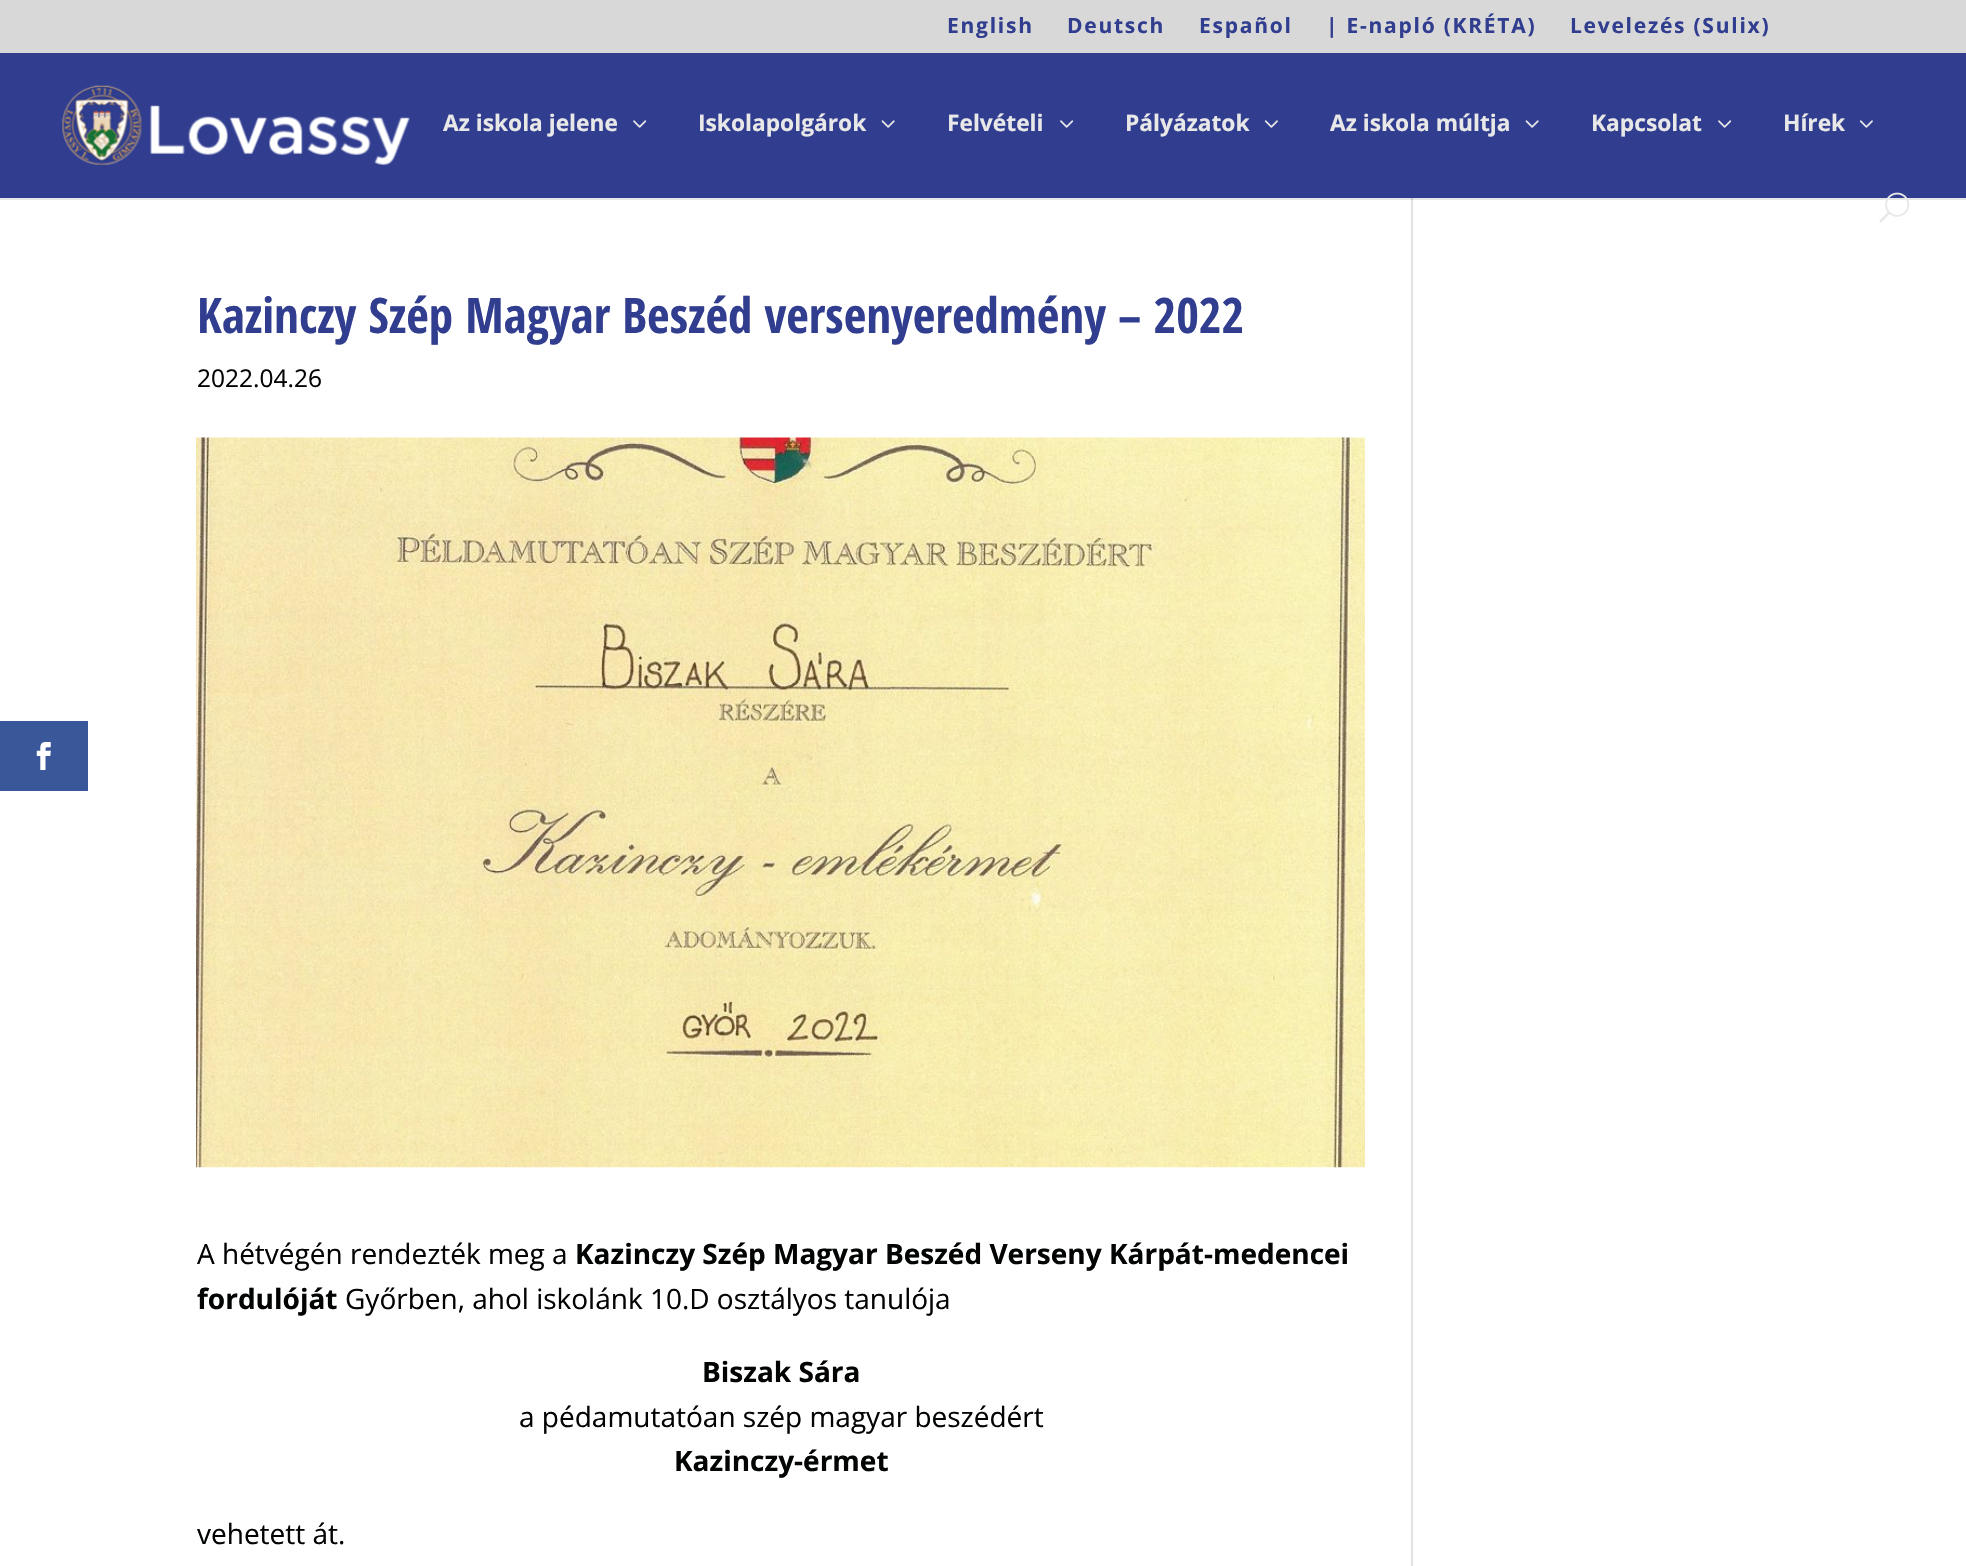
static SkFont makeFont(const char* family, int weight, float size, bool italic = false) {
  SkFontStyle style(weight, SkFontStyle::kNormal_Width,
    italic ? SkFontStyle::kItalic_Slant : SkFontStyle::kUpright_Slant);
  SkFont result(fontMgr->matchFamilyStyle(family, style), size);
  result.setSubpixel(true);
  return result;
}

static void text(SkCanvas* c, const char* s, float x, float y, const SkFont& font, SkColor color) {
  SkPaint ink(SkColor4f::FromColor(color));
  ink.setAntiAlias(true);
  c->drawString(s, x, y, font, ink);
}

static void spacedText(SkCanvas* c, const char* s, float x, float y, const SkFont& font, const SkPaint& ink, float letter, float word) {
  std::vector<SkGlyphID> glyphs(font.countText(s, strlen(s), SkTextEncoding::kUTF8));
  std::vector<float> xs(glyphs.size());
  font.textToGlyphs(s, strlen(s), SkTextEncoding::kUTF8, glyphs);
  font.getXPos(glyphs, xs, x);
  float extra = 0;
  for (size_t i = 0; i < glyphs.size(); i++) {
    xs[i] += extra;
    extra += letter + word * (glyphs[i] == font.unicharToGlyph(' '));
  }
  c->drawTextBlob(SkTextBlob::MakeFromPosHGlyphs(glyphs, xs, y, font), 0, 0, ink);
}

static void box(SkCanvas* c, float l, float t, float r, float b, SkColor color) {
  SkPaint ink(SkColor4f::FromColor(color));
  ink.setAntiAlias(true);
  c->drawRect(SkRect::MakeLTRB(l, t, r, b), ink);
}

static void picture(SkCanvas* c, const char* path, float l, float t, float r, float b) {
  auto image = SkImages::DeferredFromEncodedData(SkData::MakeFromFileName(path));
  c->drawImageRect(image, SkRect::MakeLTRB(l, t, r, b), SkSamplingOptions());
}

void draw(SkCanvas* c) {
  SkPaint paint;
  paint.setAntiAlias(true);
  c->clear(0xffffffff);
  box(c, 0, 198, 1966, 200, 0xffe6e6e6);
  box(c, 0, 721, 88, 791, 0xff3a579a);
  picture(c, "img_01.png", 36, 742, 51, 770);
  box(c, 0, 0, 1966, 53, 0xffd8d8d8);
  SkFont face1 = makeFont("Open Sans", 700, 21);
  paint.setColor(0xff313d8f);
  spacedText(c, "English", 947, 33, face1, paint, 1.75f, 0);
  spacedText(c, "Deutsch", 1067, 33, face1, paint, 1.75f, 0);
  spacedText(c, "Español", 1199, 33, face1, paint, 1.75f, 0);
  spacedText(c, "| E-napló (KRÉTA)", 1326, 33, face1, paint, 1.75f, 0);
  spacedText(c, "Levelezés (Sulix)", 1570, 33, face1, paint, 1.75f, 0);
  box(c, 0, 53, 1966, 198, 0xff313d8f);
  picture(c, "img_02.png", 62, 85, 410, 165);
  SkFont face2 = makeFont("Open Sans", 700, 22.75f);
  text(c, "Az iskola jelene", 443, 131, face2, 0xffe8e8e8);
  picture(c, "img_03.png", 633, 120, 647, 128);
  text(c, "Iskolapolgárok", 698, 131, face2, 0xffe8e8e8);
  picture(c, "img_04.png", 881, 120, 895, 128);
  text(c, "Felvételi", 947, 131, face2, 0xffe8e8e8);
  picture(c, "img_03.png", 1060, 120, 1074, 128);
  text(c, "Pályázatok", 1125, 131, face2, 0xffe8e8e8);
  picture(c, "img_05.png", 1264, 120, 1278, 128);
  text(c, "Az iskola múltja", 1330, 131, face2, 0xffe8e8e8);
  picture(c, "img_04.png", 1525, 120, 1539, 128);
  text(c, "Kapcsolat", 1591, 131, face2, 0xffe8e8e8);
  picture(c, "img_03.png", 1718, 120, 1732, 128);
  text(c, "Hírek", 1783, 131, face2, 0xffe8e8e8);
  picture(c, "img_05.png", 1859, 120, 1873, 128);
  picture(c, "img_06.png", 1879, 192, 1910, 223);
  SkFont face3 = makeFont("Open Sans Condensed", 700, 49);
  text(c, "Kazinczy Szép Magyar Beszéd versenyeredmény – 2022", 197, 333, face3, 0xff313d8f);
  SkFont face4 = makeFont("Open Sans", 400, 24.5f);
  text(c, "2022.04.26", 197, 387, face4, 0xff020303);
  picture(c, "img_07.png", 196, 437, 1365, 1168);
  SkFont face5 = makeFont("Open Sans", 400, 28);
  text(c, "A hétvégén rendezték meg a", 197, 1264, face5, 0xff020303);
  SkFont face6 = makeFont("Open Sans", 700, 28);
  text(c, "Kazinczy Szép Magyar Beszéd Verseny Kárpát-medencei", 575, 1264, face6, 0xff020303);
  text(c, "fordulóját", 197, 1309, face6, 0xff020303);
  text(c, "Győrben, ahol iskolánk 10.D osztályos tanulója", 345, 1309, face5, 0xff020303);
  text(c, "Biszak Sára", 702, 1382, face6, 0xff020303);
  text(c, "a pédamutatóan szép magyar beszédért", 519, 1427, face5, 0xff020303);
  text(c, "Kazinczy-érmet", 674, 1471, face6, 0xff020303);
  text(c, "vehetett át.", 197, 1544, face5, 0xff020303);
  box(c, 1411, 200, 1413, 1566, 0xffe2e2e2);
  box(c, 1411, 198, 1413, 200, 0xffcbcbcb);
}
